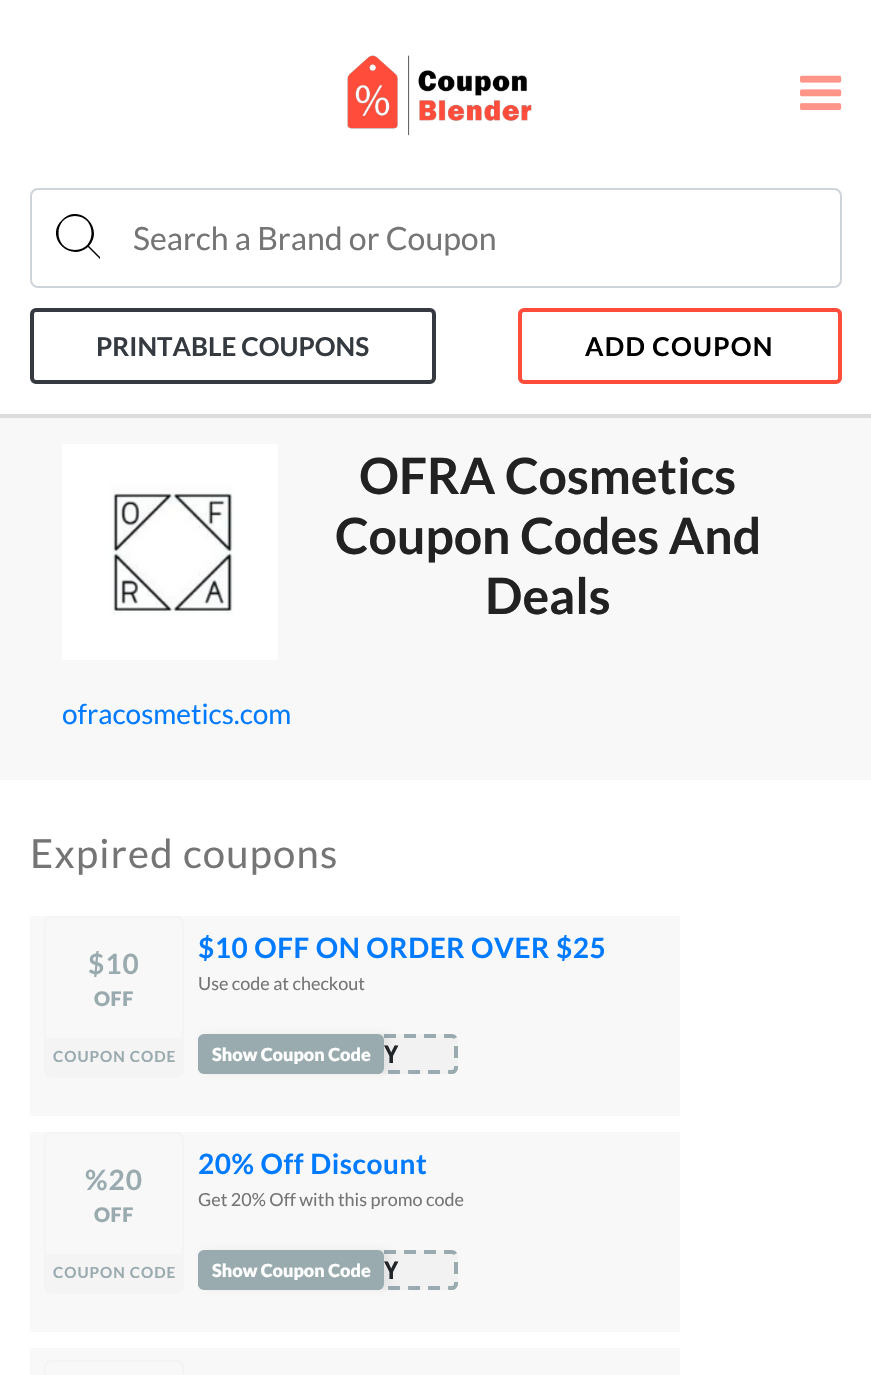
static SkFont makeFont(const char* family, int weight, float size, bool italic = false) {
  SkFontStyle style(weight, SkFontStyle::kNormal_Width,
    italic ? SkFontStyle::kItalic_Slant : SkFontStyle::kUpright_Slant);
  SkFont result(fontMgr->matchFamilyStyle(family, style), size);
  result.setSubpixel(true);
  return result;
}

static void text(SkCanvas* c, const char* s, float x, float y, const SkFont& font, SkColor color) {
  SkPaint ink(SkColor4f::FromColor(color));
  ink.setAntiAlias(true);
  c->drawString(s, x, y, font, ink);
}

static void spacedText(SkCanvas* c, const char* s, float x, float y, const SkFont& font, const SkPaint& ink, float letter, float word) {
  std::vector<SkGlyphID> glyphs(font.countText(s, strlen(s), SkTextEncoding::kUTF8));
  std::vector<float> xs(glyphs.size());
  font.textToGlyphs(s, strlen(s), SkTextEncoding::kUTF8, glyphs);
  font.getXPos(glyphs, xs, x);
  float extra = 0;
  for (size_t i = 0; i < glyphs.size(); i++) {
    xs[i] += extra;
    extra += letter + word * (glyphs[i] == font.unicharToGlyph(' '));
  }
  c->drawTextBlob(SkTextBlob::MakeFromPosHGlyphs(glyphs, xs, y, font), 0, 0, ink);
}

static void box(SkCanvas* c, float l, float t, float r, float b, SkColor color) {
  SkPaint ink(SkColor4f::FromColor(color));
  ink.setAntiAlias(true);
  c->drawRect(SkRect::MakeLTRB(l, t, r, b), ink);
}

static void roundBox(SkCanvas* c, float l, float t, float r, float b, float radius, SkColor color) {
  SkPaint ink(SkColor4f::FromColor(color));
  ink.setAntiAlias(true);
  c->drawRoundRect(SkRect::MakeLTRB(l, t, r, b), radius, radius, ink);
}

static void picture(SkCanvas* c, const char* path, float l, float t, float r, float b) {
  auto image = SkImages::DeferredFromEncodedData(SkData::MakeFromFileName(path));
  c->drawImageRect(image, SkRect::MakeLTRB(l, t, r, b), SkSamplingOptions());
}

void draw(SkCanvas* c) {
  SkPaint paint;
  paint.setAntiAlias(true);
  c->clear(0xffffffff);
  picture(c, "img_01.png", 347, 55, 532, 136);
  picture(c, "img_02.png", 800, 75, 842, 110);
  box(c, 0, 414, 871, 418, 0xffdddddd);
  paint.setStyle(SkPaint::kStroke_Style);
  paint.setStrokeWidth(2);
  paint.setColor(0xffced4da);
  c->drawRoundRect(SkRect::MakeLTRB(31, 189, 841, 287), 7, 7, paint);
  c->save();
  c->clipRect(SkRect::MakeLTRB(56, 214, 100, 262));
  paint.setStyle(SkPaint::kFill_Style);
  paint.setColor(0xff000000);
  c->drawPath(SkPathBuilder(SkPathFillType::kEvenOdd).moveTo(88, 247).cubicTo(70, 263, 44, 237, 62, 220).cubicTo(79, 202, 105, 228, 89, 246).lineTo(104, 261).lineTo(103, 262).close().moveTo(75, 216).cubicTo(97, 216, 97, 250, 75, 250).cubicTo(53, 250, 53, 216, 75, 216).close().detach(), paint);
  c->restore();
  SkFont face1 = makeFont("Lato", 400, 32);
  text(c, "Search a Brand or Coupon", 133, 250, face1, 0xff757575);
  paint.setStyle(SkPaint::kStroke_Style);
  paint.setStrokeWidth(4);
  paint.setColor(0xff343a40);
  c->drawRoundRect(SkRect::MakeLTRB(32, 310, 434, 382), 4, 4, paint);
  SkFont face2 = makeFont("Lato", 700, 26);
  text(c, "PRINTABLE COUPONS", 96, 356, face2, 0xff343a40);
  paint.setColor(0xffff4c3b);
  c->drawRoundRect(SkRect::MakeLTRB(520, 310, 840, 382), 4, 4, paint);
  paint.setStyle(SkPaint::kFill_Style);
  paint.setColor(0xff000000);
  spacedText(c, "ADD COUPON", 585, 356, face2, paint, 1.25f, 0);
  box(c, 0, 418, 871, 780, 0xfff8f8f8);
  picture(c, "img_03.png", 62, 444, 278, 660);
  SkFont face3 = makeFont("Lato", 700, 50);
  text(c, "OFRA Cosmetics", 359, 494, face3, 0xff222222);
  text(c, "Coupon Codes And", 335, 554, face3, 0xff222222);
  text(c, "Deals", 485, 614, face3, 0xff222222);
  SkFont face4 = makeFont("Lato", 400, 28);
  text(c, "ofracosmetics.com", 62, 724, face4, 0xff007bff);
  SkFont face5 = makeFont("Lato", 400, 40);
  paint.setColor(0xff757575);
  spacedText(c, "Expired coupons", 30, 868, face5, paint, 1.25f, 0);
  box(c, 30, 916, 680, 1116, 0xfff8f8f8);
  paint.setStyle(SkPaint::kStroke_Style);
  paint.setStrokeWidth(2);
  paint.setColor(0xfff5f4f4);
  c->drawRoundRect(SkRect::MakeLTRB(45, 917, 183, 1077), 7, 7, paint);
  SkFont face6 = makeFont("Lato", 700, 28);
  paint.setStyle(SkPaint::kFill_Style);
  paint.setColor(0xff9aabb0);
  spacedText(c, "$10", 88, 974, face6, paint, 1, 0);
  SkFont face7 = makeFont("Lato", 900, 20);
  spacedText(c, "OFF", 94, 1006, face7, paint, 0.5f, 0);
  paint.setColor(0xfff5f4f4);
  c->drawPath(SkPathBuilder().moveTo(46, 1038).lineTo(182, 1038).lineTo(182, 1072).cubicTo(182, 1074, 180, 1076, 178, 1076).lineTo(50, 1076).cubicTo(48, 1076, 46, 1074, 46, 1072).close().detach(), paint);
  SkFont face8 = makeFont("Lato", 700, 15.25f);
  paint.setColor(0xff9aabb0);
  spacedText(c, "COUPON CODE", 53, 1062, face8, paint, 1, 0);
  paint.setColor(0xff007bff);
  spacedText(c, "$10 OFF ON ORDER OVER $25", 198, 958, face6, paint, 0.55f, 0);
  SkFont face9 = makeFont("Lato", 400, 18);
  text(c, "Use code at checkout", 198, 990, face9, 0xff757575);
  roundBox(c, 198, 1034, 458, 1074, 6, 0xfff2f2f2);
  paint.setStyle(SkPaint::kStroke_Style);
  paint.setStrokeWidth(4);
  paint.setColor(0xff9aabb0);
  paint.setPathEffect(SkDashPathEffect::Make({{12, 8}}, 0));
  c->drawPath(SkPathBuilder().moveTo(204, 1036).lineTo(452, 1036).cubicTo(454, 1036, 456, 1038, 456, 1040).lineTo(456, 1068).cubicTo(456, 1070, 454, 1072, 452, 1072).lineTo(204, 1072).cubicTo(202, 1072, 200, 1070, 200, 1068).lineTo(200, 1040).cubicTo(200, 1038, 202, 1036, 204, 1036).close().detach(), paint);
  paint.setPathEffect(nullptr);
  paint.setStyle(SkPaint::kFill_Style);
  paint.setColor(0x0f000000);
  paint.setMaskFilter(SkMaskFilter::MakeBlur(kNormal_SkBlurStyle, 3));
  c->drawRoundRect(SkRect::MakeLTRB(204, 1034, 390, 1074), 6, 6, paint);
  paint.setMaskFilter(nullptr);
  SkFont face10 = makeFont("DejaVu Sans Mono", 700, 24);
  text(c, "Y", 384, 1063, face10, 0xff212529);
  roundBox(c, 198, 1034, 384, 1074, 6, 0xff9aabb0);
  SkFont face11 = makeFont("Lato", 900, 18);
  text(c, "Show Coupon Code", 212, 1061, face11, 0xffffffff);
  box(c, 30, 1132, 680, 1332, 0xfff8f8f8);
  paint.setStyle(SkPaint::kStroke_Style);
  paint.setStrokeWidth(2);
  paint.setColor(0xfff5f4f4);
  c->drawRoundRect(SkRect::MakeLTRB(45, 1133, 183, 1293), 7, 7, paint);
  paint.setStyle(SkPaint::kFill_Style);
  paint.setColor(0xff9aabb0);
  spacedText(c, "%20", 85, 1190, face6, paint, 1, 0);
  spacedText(c, "OFF", 94, 1222, face7, paint, 0.5f, 0);
  paint.setColor(0xfff5f4f4);
  c->drawPath(SkPathBuilder().moveTo(46, 1254).lineTo(182, 1254).lineTo(182, 1288).cubicTo(182, 1290, 180, 1292, 178, 1292).lineTo(50, 1292).cubicTo(48, 1292, 46, 1290, 46, 1288).close().detach(), paint);
  paint.setColor(0xff9aabb0);
  spacedText(c, "COUPON CODE", 53, 1278, face8, paint, 1, 0);
  paint.setColor(0xff007bff);
  spacedText(c, "20% Off Discount", 198, 1174, face6, paint, 0.55f, 0);
  text(c, "Get 20% Off with this promo code", 198, 1206, face9, 0xff757575);
  roundBox(c, 198, 1250, 458, 1290, 6, 0xfff2f2f2);
  paint.setStyle(SkPaint::kStroke_Style);
  paint.setStrokeWidth(4);
  paint.setColor(0xff9aabb0);
  paint.setPathEffect(SkDashPathEffect::Make({{12, 8}}, 0));
  c->drawPath(SkPathBuilder().moveTo(204, 1252).lineTo(452, 1252).cubicTo(454, 1252, 456, 1254, 456, 1256).lineTo(456, 1284).cubicTo(456, 1286, 454, 1288, 452, 1288).lineTo(204, 1288).cubicTo(202, 1288, 200, 1286, 200, 1284).lineTo(200, 1256).cubicTo(200, 1254, 202, 1252, 204, 1252).close().detach(), paint);
  paint.setPathEffect(nullptr);
  paint.setStyle(SkPaint::kFill_Style);
  paint.setColor(0x0f000000);
  paint.setMaskFilter(SkMaskFilter::MakeBlur(kNormal_SkBlurStyle, 3));
  c->drawRoundRect(SkRect::MakeLTRB(204, 1250, 390, 1290), 6, 6, paint);
  paint.setMaskFilter(nullptr);
  text(c, "Y", 384, 1279, face10, 0xff212529);
  roundBox(c, 198, 1250, 384, 1290, 6, 0xff9aabb0);
  text(c, "Show Coupon Code", 212, 1277, face11, 0xffffffff);
  box(c, 30, 1348, 680, 1375, 0xfff8f8f8);
  paint.setStyle(SkPaint::kStroke_Style);
  paint.setStrokeWidth(2);
  paint.setColor(0xfff5f4f4);
  c->drawRoundRect(SkRect::MakeLTRB(45, 1361, 183, 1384), 7, 7, paint);
}
